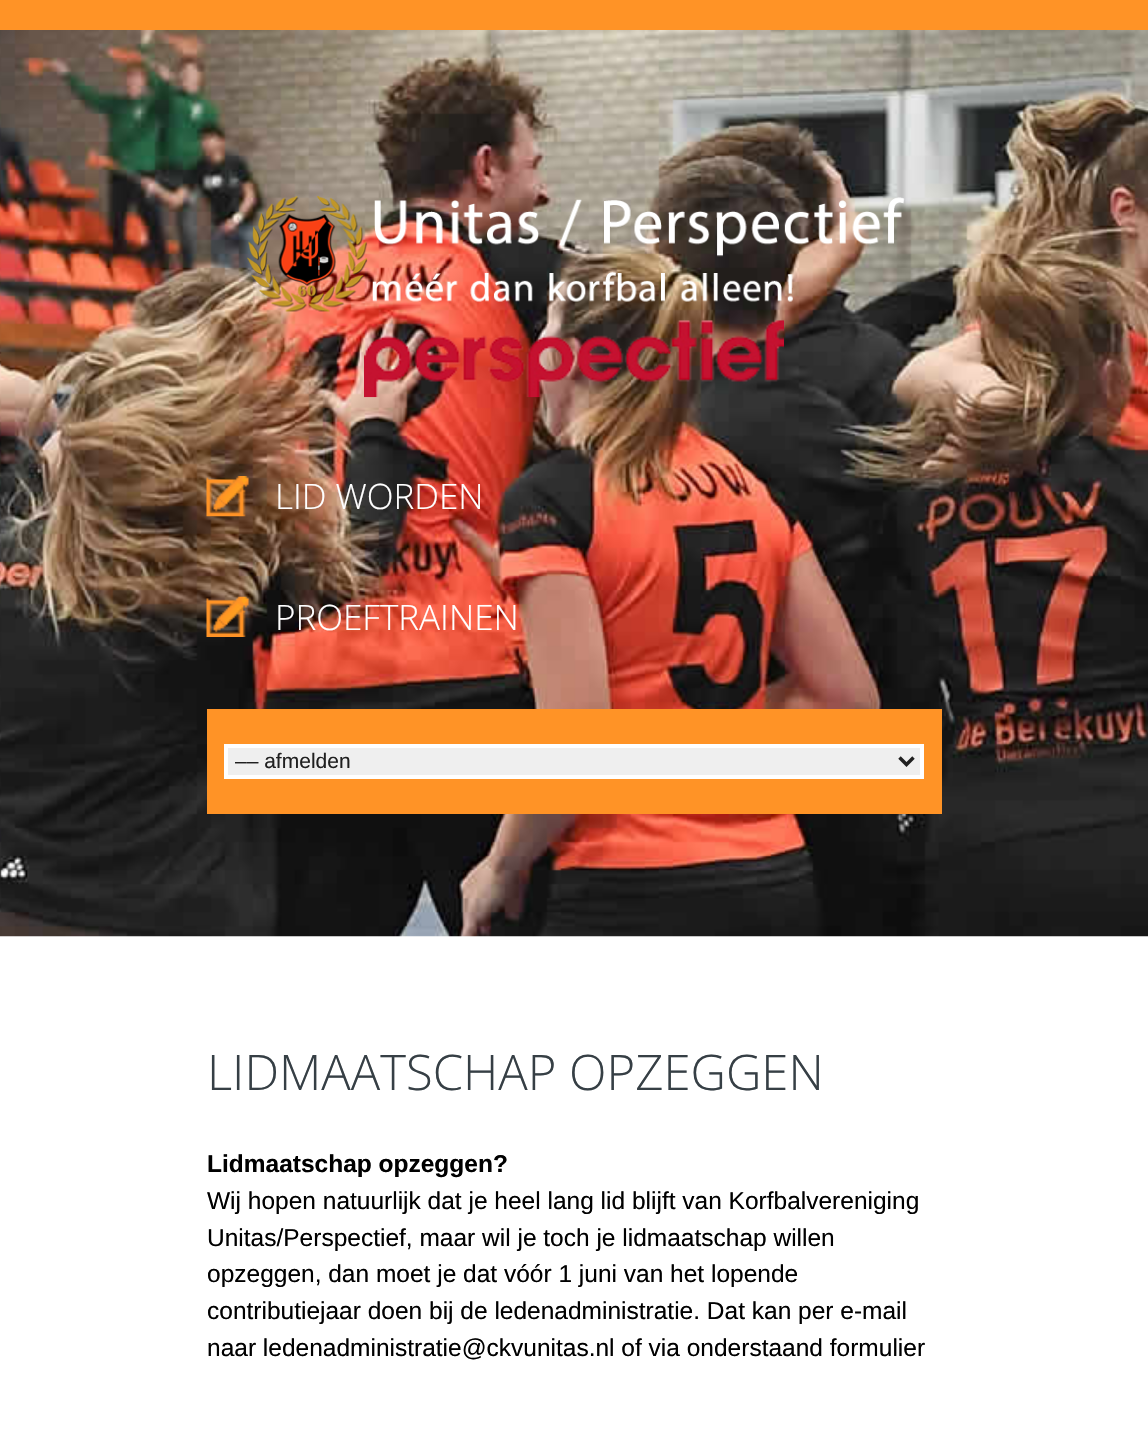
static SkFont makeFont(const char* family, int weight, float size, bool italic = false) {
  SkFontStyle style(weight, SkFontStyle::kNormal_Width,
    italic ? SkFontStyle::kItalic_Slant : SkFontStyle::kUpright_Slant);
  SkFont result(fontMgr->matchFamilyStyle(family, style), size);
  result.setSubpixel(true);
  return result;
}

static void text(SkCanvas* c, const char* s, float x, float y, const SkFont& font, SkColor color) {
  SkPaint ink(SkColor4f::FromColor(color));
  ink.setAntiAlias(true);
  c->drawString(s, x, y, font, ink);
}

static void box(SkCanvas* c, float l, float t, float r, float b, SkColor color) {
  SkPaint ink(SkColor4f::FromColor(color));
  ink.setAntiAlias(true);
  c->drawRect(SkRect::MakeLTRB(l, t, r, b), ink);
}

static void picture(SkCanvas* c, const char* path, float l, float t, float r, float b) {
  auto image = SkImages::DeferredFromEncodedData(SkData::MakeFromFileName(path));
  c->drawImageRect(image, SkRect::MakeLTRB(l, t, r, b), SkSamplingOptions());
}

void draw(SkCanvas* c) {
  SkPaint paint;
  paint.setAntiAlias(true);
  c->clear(0xffffffff);
  picture(c, "img_01.png", 0, 30, 1148, 937);
  box(c, 0, 0, 1148, 30, 0xffff9326);
  picture(c, "img_02.png", 247, 196, 905, 312);
  picture(c, "img_03.png", 364, 320, 784, 398);
  picture(c, "img_04.png", 206, 476, 249, 517);
  SkFont face1 = makeFont("Open Sans", 300, 35);
  text(c, "LID WORDEN", 275, 509, face1, 0xffffffff);
  picture(c, "img_05.png", 206, 596, 249, 637);
  text(c, "PROEFTRAINEN", 275, 630, face1, 0xffffffff);
  box(c, 207, 709, 942, 814, 0xffff9326);
  paint.setColor(0xffefefef);
  c->drawRect(SkRect::MakeLTRB(226, 746, 922, 777), paint);
  paint.setStyle(SkPaint::kStroke_Style);
  paint.setStrokeWidth(4);
  paint.setColor(0xffffffff);
  c->drawRect(SkRect::MakeLTRB(226, 746, 922, 777), paint);
  paint.setStrokeWidth(3.5f);
  paint.setColor(0xff202020);
  c->drawPath(SkPathBuilder().moveTo(899.5f, 757.5f).lineTo(906.5f, 764.5f).lineTo(913.5f, 757.5f).detach(), paint);
  SkFont face2 = makeFont("Liberation Sans", 400, 21);
  text(c, "–– afmelden", 235, 768, face2, 0xff202020);
  SkFont face3 = makeFont("Open Sans", 300, 49);
  text(c, "LIDMAATSCHAP OPZEGGEN", 207, 1090, face3, 0xff363f45);
  SkFont face4 = makeFont("Liberation Sans", 700, 24.5f);
  text(c, "Lidmaatschap opzeggen?", 207, 1172, face4, 0xff000000);
  SkFont face5 = makeFont("Liberation Sans", 400, 24.5f);
  text(c, "Wij hopen natuurlijk dat je heel lang lid blijft van Korfbalvereniging", 207, 1209, face5, 0xff000000);
  text(c, "Unitas/Perspectief, maar wil je toch je lidmaatschap willen", 207, 1246, face5, 0xff000000);
  text(c, "opzeggen, dan moet je dat vóór 1 juni van het lopende", 207, 1282, face5, 0xff000000);
  text(c, "contributiejaar doen bij de ledenadministratie. Dat kan per e-mail", 207, 1319, face5, 0xff000000);
  text(c, "naar ledenadministratie@ckvunitas.nl of via onderstaand formulier", 207, 1356, face5, 0xff000000);
}
